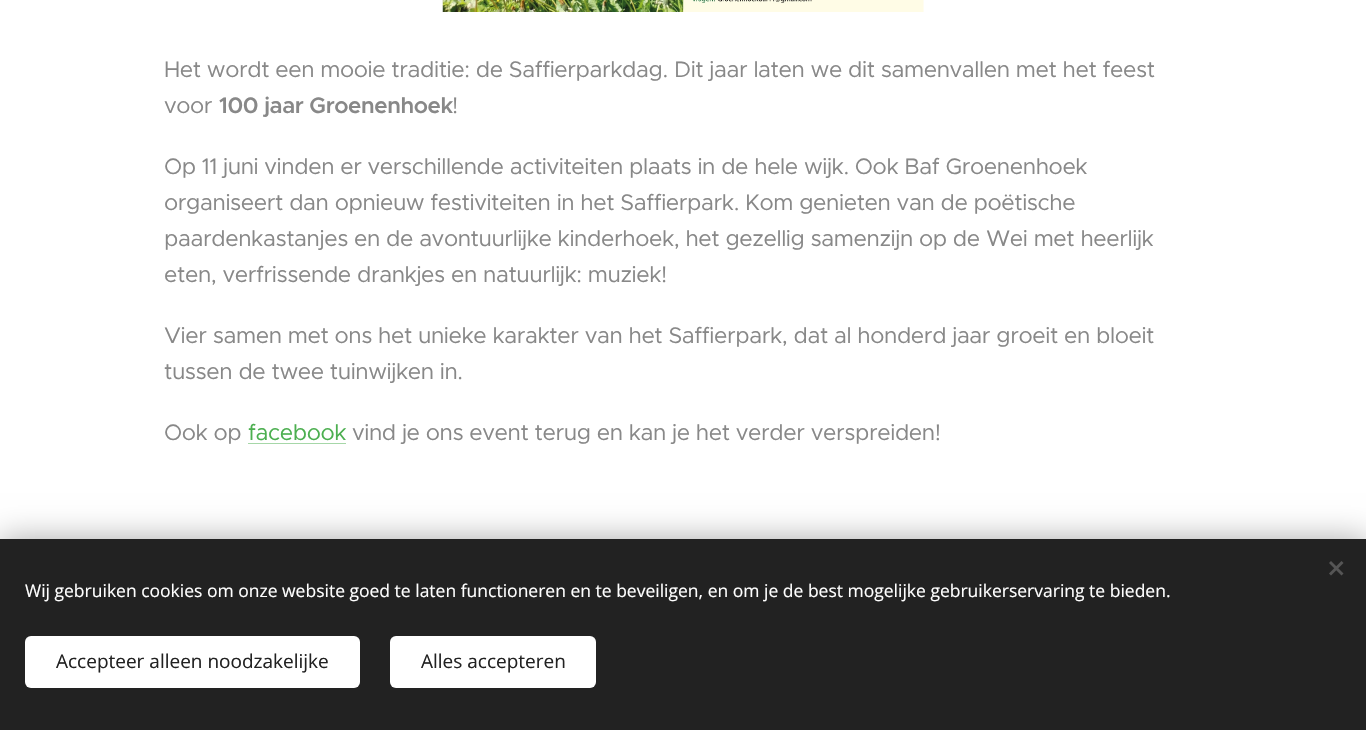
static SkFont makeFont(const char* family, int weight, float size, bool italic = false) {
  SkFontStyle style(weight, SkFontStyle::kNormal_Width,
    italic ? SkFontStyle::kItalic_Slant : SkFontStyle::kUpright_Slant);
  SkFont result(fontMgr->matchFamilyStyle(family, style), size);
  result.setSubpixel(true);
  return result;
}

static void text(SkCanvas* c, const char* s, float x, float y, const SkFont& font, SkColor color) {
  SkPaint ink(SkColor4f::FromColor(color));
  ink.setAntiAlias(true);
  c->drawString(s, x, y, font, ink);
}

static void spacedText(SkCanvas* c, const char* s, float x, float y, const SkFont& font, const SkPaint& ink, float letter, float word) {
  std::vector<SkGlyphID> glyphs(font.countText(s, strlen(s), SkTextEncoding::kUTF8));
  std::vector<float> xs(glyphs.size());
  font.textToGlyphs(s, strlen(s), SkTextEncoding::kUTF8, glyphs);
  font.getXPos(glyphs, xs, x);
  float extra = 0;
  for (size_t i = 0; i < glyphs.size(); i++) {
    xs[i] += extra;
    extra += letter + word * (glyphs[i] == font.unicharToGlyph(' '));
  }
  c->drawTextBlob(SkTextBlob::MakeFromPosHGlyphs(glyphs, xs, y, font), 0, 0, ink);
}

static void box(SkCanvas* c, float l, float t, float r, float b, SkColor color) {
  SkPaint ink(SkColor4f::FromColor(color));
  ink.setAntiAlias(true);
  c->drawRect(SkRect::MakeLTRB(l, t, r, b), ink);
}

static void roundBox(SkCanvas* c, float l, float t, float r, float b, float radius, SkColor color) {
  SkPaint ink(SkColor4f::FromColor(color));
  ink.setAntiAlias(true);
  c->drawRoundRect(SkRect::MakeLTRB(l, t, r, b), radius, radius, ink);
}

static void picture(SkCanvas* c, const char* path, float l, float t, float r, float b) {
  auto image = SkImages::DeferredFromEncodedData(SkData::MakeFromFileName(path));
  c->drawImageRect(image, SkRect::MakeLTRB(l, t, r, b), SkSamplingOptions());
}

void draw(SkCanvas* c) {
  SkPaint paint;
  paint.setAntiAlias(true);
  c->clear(0xffffffff);
  picture(c, "img_01.png", 442, 0, 924, 12);
  SkFont face1 = makeFont("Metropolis", 400, 22.5f);
  paint.setColor(0xff888888);
  spacedText(c, "Het wordt een mooie traditie: de Saffierparkdag. Dit jaar laten we dit samenvallen met het feest", 164, 77, face1, paint, -0.4f, 0);
  spacedText(c, "voor", 164, 113, face1, paint, -0.4f, 0);
  SkFont face2 = makeFont("Metropolis", 600, 22.5f);
  spacedText(c, "100 jaar Groenenhoek", 219, 113, face2, paint, -0.4f, 0);
  spacedText(c, "!", 452, 113, face1, paint, -0.4f, 0);
  spacedText(c, "Op 11 juni vinden er verschillende activiteiten plaats in de hele wijk. Ook Baf Groenenhoek", 164, 174, face1, paint, -0.4f, 0);
  spacedText(c, "organiseert dan opnieuw festiviteiten in het Saffierpark. Kom genieten van de poëtische", 164, 210, face1, paint, -0.4f, 0);
  spacedText(c, "paardenkastanjes en de avontuurlijke kinderhoek, het gezellig samenzijn op de Wei met heerlijk", 164, 246, face1, paint, -0.4f, 0);
  spacedText(c, "eten, verfrissende drankjes en natuurlijk: muziek!", 164, 282, face1, paint, -0.4f, 0);
  spacedText(c, "Vier samen met ons het unieke karakter van het Saffierpark, dat al honderd jaar groeit en bloeit", 164, 343, face1, paint, -0.4f, 0);
  spacedText(c, "tussen de twee tuinwijken in.", 164, 379, face1, paint, -0.4f, 0);
  spacedText(c, "Ook op", 164, 440, face1, paint, -0.4f, 0);
  paint.setColor(0xff4caf50);
  spacedText(c, "facebook", 248, 440, face1, paint, -0.4f, 0);
  box(c, 248, 443, 346, 444, 0xffa6d7a8);
  paint.setColor(0xff888888);
  spacedText(c, "vind je ons event terug en kan je het verder verspreiden!", 352, 440, face1, paint, -0.4f, 0);
  paint.setColor(0x54000000);
  paint.setMaskFilter(SkMaskFilter::MakeBlur(kNormal_SkBlurStyle, 15.5f));
  c->drawRect(SkRect::MakeLTRB(0, 539, 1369, 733), paint);
  paint.setMaskFilter(nullptr);
  box(c, 0, 539, 1366, 730, 0xff222222);
  paint.setColor(0xff555555);
  c->drawPath(SkPathBuilder().moveTo(1329, 573.5f).lineTo(1341.5f, 561).lineTo(1343.5f, 563).lineTo(1331, 575.5f).close().detach(), paint);
  c->drawPath(SkPathBuilder().moveTo(1331, 561).lineTo(1343.5f, 573.5f).lineTo(1341.5f, 575.5f).lineTo(1329, 563).close().detach(), paint);
  SkFont face3 = makeFont("Open Sans", 400, 17.5f);
  text(c, "Wij gebruiken cookies om onze website goed te laten functioneren en te beveiligen, en om je de best mogelijke gebruikerservaring te bieden.", 25, 597, face3, 0xffffffff);
  roundBox(c, 25, 636, 360, 688, 6, 0xffffffff);
  SkFont face4 = makeFont("Open Sans", 400, 19);
  text(c, "Accepteer alleen noodzakelijke", 56, 668, face4, 0xff222222);
  roundBox(c, 390, 636, 596, 688, 6, 0xffffffff);
  text(c, "Alles accepteren", 421, 668, face4, 0xff222222);
}
